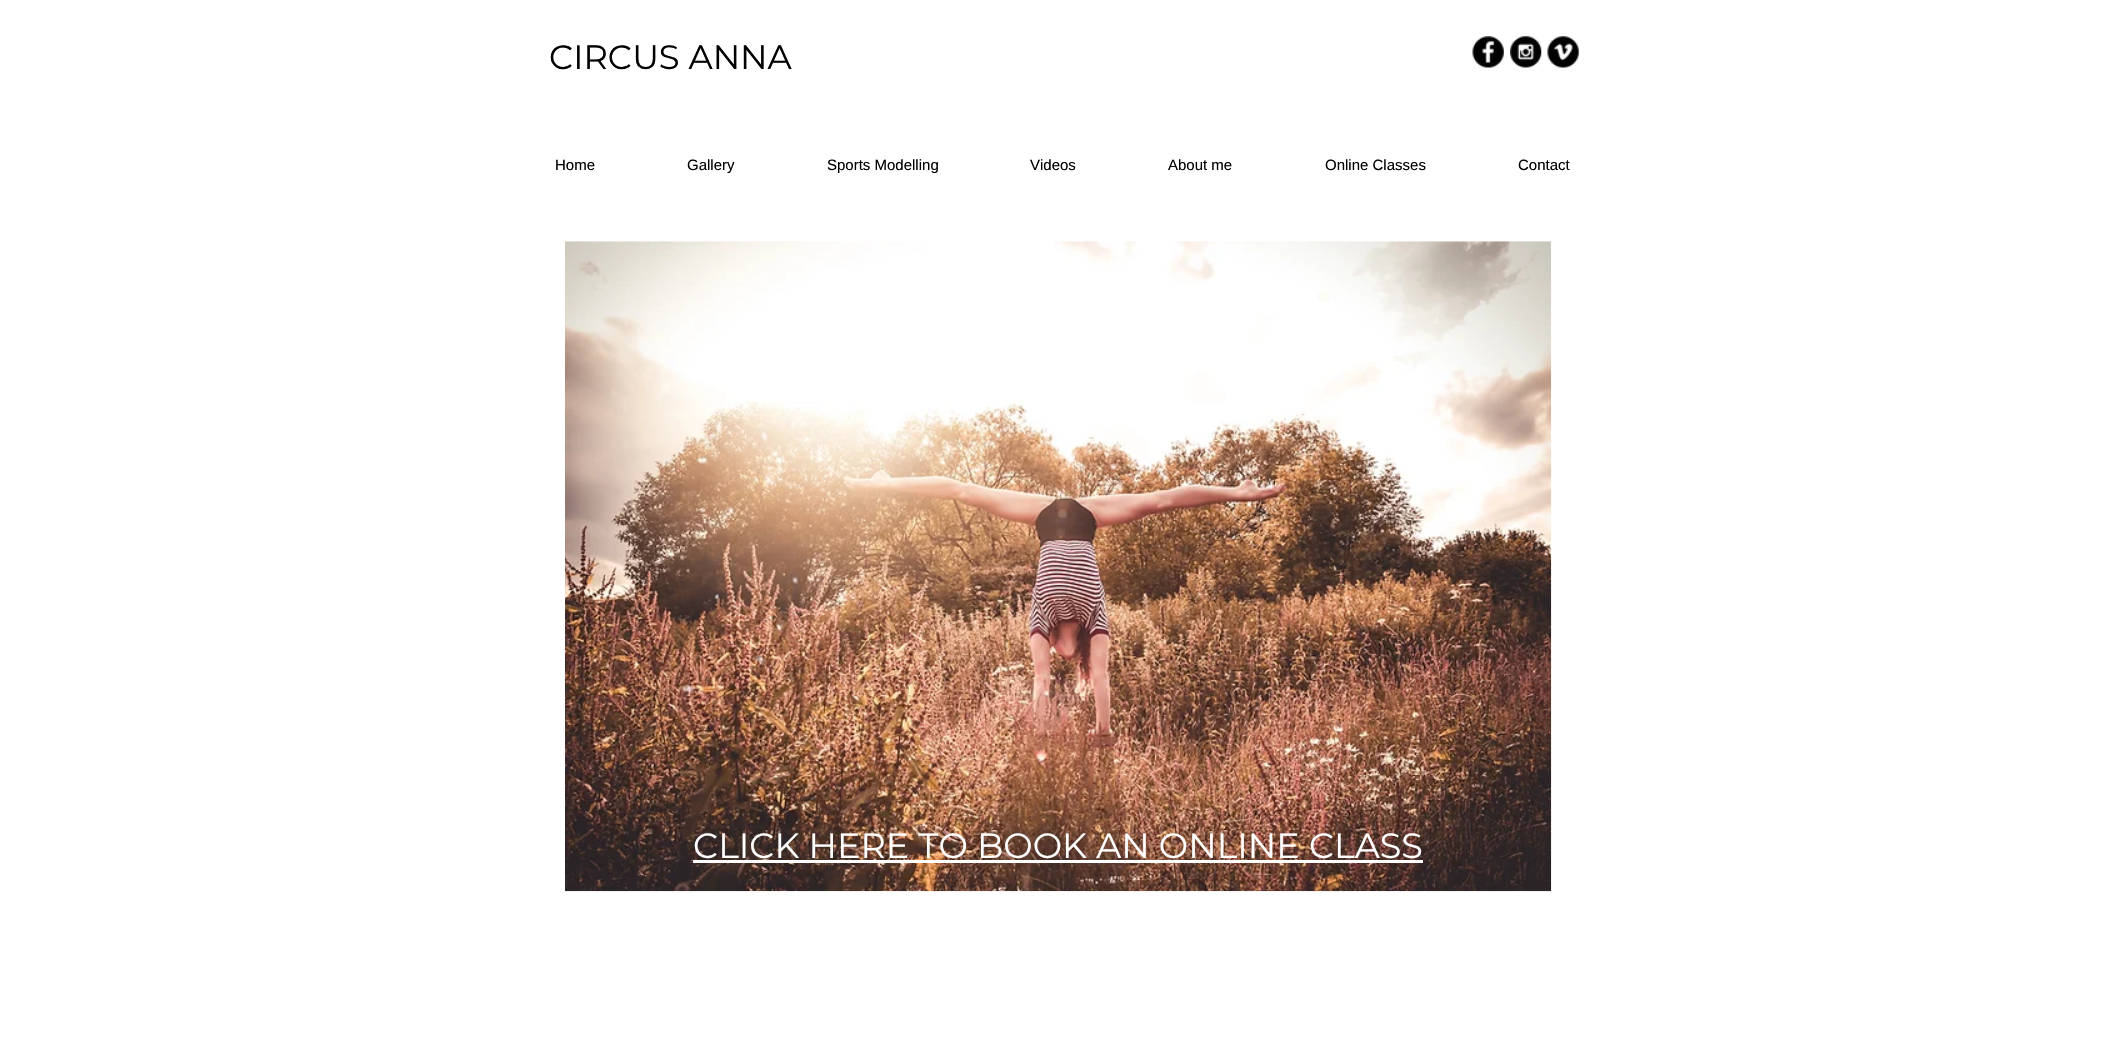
static SkFont makeFont(const char* family, int weight, float size, bool italic = false) {
  SkFontStyle style(weight, SkFontStyle::kNormal_Width,
    italic ? SkFontStyle::kItalic_Slant : SkFontStyle::kUpright_Slant);
  SkFont result(fontMgr->matchFamilyStyle(family, style), size);
  result.setSubpixel(true);
  return result;
}

static void text(SkCanvas* c, const char* s, float x, float y, const SkFont& font, SkColor color) {
  SkPaint ink(SkColor4f::FromColor(color));
  ink.setAntiAlias(true);
  c->drawString(s, x, y, font, ink);
}

static void box(SkCanvas* c, float l, float t, float r, float b, SkColor color) {
  SkPaint ink(SkColor4f::FromColor(color));
  ink.setAntiAlias(true);
  c->drawRect(SkRect::MakeLTRB(l, t, r, b), ink);
}

static void picture(SkCanvas* c, const char* path, float l, float t, float r, float b) {
  auto image = SkImages::DeferredFromEncodedData(SkData::MakeFromFileName(path));
  c->drawImageRect(image, SkRect::MakeLTRB(l, t, r, b), SkSamplingOptions());
}

void draw(SkCanvas* c) {
  SkPaint paint;
  paint.setAntiAlias(true);
  c->clear(0xffffffff);
  picture(c, "img_01.png", 1472, 36, 1504, 68);
  picture(c, "img_02.png", 1510, 36, 1542, 68);
  picture(c, "img_03.png", 1547, 36, 1579, 68);
  SkFont face1 = makeFont("Montserrat", 400, 33.75f);
  text(c, "CIRCUS ANNA", 549, 69, face1, 0xff000000);
  SkFont face2 = makeFont("Liberation Sans", 400, 15);
  text(c, "Home", 555, 170, face2, 0xff000000);
  text(c, "Gallery", 687, 170, face2, 0xff000000);
  text(c, "Sports Modelling", 827, 170, face2, 0xff000000);
  text(c, "Videos", 1030, 170, face2, 0xff000000);
  text(c, "About me", 1168, 170, face2, 0xff000000);
  text(c, "Online Classes", 1325, 170, face2, 0xff000000);
  text(c, "Contact", 1518, 170, face2, 0xff000000);
  picture(c, "img_04.png", 565, 241, 1552, 892);
  SkFont face3 = makeFont("Montserrat", 400, 35);
  text(c, "CLICK HERE TO BOOK AN ONLINE CLASS", 693, 858, face3, 0xffffffff);
  box(c, 693, 860, 1423, 863, 0xffffffff);
}
